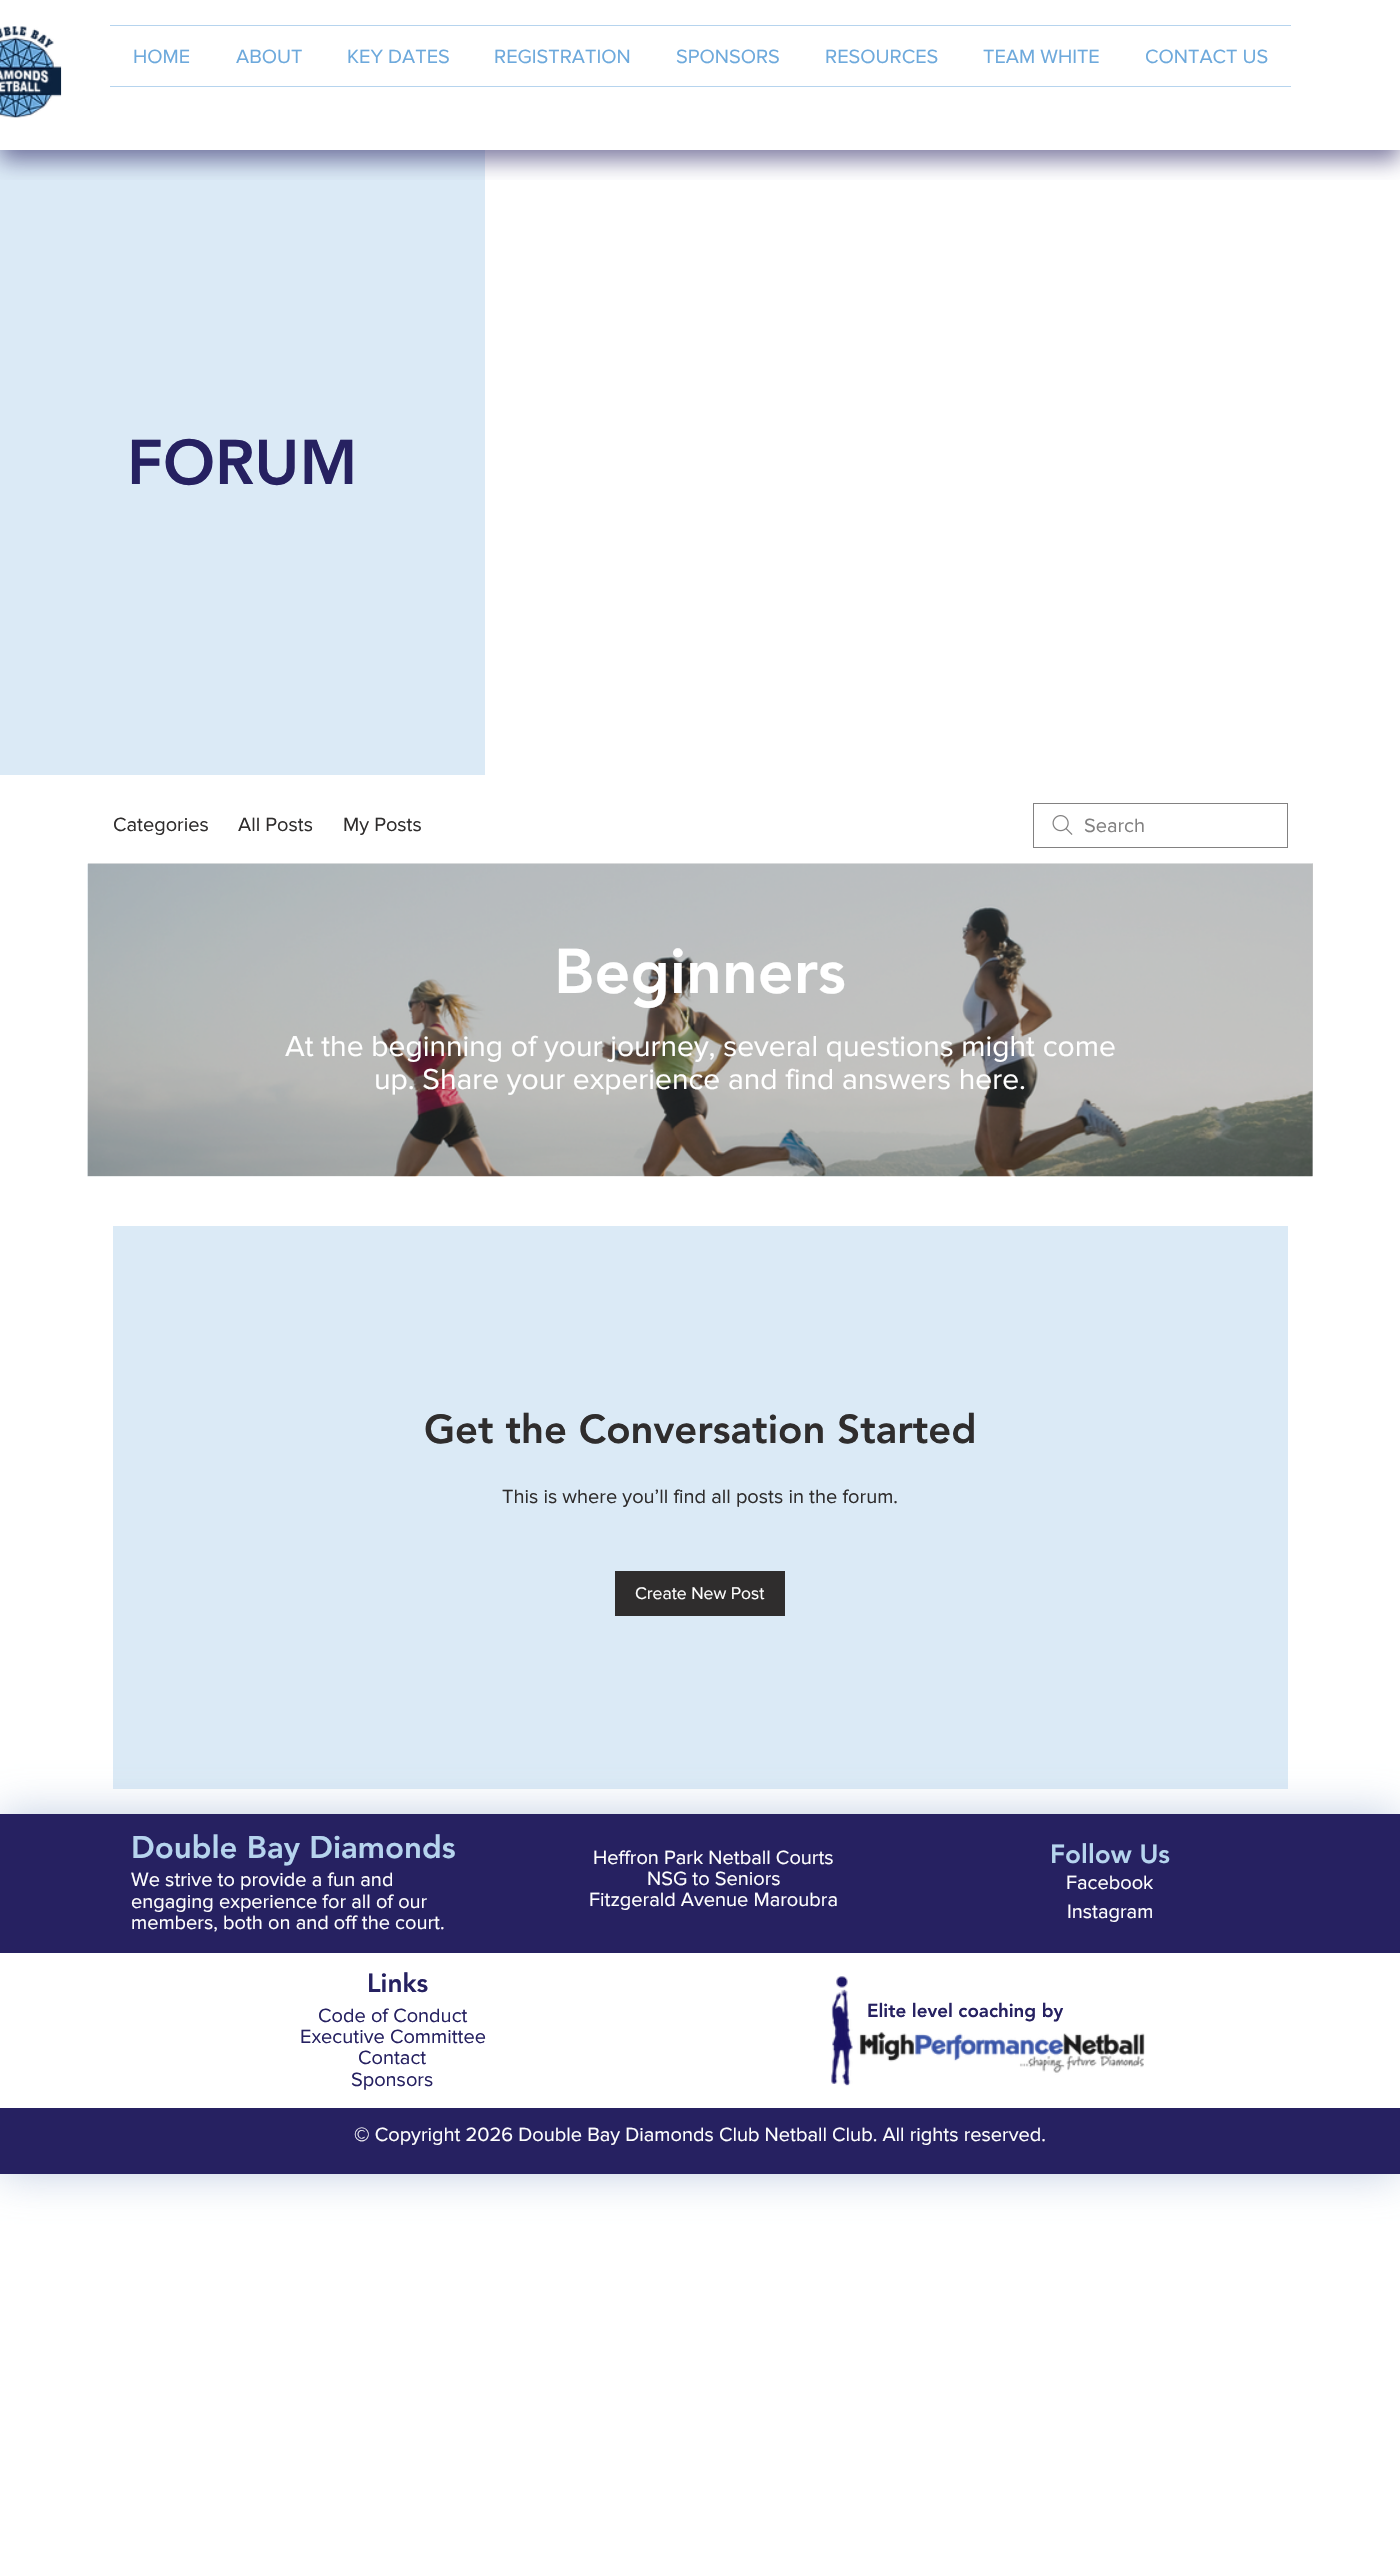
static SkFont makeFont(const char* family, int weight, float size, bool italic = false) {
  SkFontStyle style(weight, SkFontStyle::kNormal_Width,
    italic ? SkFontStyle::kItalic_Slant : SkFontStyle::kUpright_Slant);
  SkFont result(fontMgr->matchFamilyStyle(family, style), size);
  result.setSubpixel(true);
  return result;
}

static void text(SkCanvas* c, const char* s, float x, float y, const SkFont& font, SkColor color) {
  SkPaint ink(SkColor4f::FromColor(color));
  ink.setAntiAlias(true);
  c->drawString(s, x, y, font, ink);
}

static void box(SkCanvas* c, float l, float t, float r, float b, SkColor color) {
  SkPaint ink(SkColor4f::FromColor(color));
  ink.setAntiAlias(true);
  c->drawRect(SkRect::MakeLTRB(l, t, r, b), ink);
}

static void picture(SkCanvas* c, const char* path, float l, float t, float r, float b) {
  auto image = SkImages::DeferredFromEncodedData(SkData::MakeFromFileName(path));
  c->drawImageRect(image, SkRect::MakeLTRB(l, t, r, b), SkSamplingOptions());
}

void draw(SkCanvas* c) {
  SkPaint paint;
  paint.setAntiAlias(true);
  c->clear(0xffffffff);
  box(c, 1312, 864, 1313, 1176, 0xffc9c9c9);
  box(c, 0, 150, 485, 775, 0xffdbeaf6);
  c->save();
  c->clipRect(SkRect::MakeLTRB(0, 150, 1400, 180));
  paint.setColor(0x99262161);
  paint.setMaskFilter(SkMaskFilter::MakeBlur(kNormal_SkBlurStyle, 11));
  c->drawRect(SkRect::MakeLTRB(0, 10, 1400, 160), paint);
  paint.setMaskFilter(nullptr);
  c->restore();
  picture(c, "img_01.png", 0, 26, 62, 118);
  box(c, 110, 25, 1291, 26, 0xffb6d4ee);
  box(c, 110, 86, 1291, 87, 0xffb6d4ee);
  SkFont face1 = makeFont("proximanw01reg", 400, 20);
  text(c, "HOME", 133, 63, face1, 0xff6da9dc);
  text(c, "ABOUT", 236, 63, face1, 0xff6da9dc);
  text(c, "KEY DATES", 347, 63, face1, 0xff6da9dc);
  text(c, "REGISTRATION", 494, 63, face1, 0xff6da9dc);
  text(c, "SPONSORS", 676, 63, face1, 0xff6da9dc);
  text(c, "RESOURCES", 825, 63, face1, 0xff6da9dc);
  text(c, "TEAM WHITE", 983, 63, face1, 0xff6da9dc);
  text(c, "CONTACT US", 1145, 63, face1, 0xff6da9dc);
  SkFont face2 = makeFont("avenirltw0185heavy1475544", 900, 62.5f);
  text(c, "FORUM", 127, 484, face2, 0xff262161);
  box(c, 88, 863, 1313, 864, 0xffd5d5d5);
  text(c, "Categories", 113, 831, face1, 0xff2f2d2d);
  text(c, "All Posts", 238, 831, face1, 0xff2f2d2d);
  text(c, "My Posts", 343, 831, face1, 0xff2f2d2d);
  picture(c, "img_02.png", 1052, 815, 1073, 835);
  paint.setStyle(SkPaint::kStroke_Style);
  paint.setStrokeWidth(1);
  paint.setColor(0xff828181);
  c->drawRect(SkRect::MakeLTRB(1033.5f, 803.5f, 1287.5f, 847.5f), paint);
  text(c, "Search", 1084, 832, face1, 0xff828181);
  picture(c, "img_03.png", 87, 863, 1313, 1177);
  text(c, "Beginners", 554, 993, face2, 0xffffffff);
  SkFont face3 = makeFont("proximanw01reg", 400, 30);
  text(c, "At the beginning of your journey, several questions might come", 285, 1056, face3, 0xffffffff);
  text(c, "up. Share your experience and find answers here.", 374, 1089, face3, 0xffffffff);
  box(c, 113, 1226, 1288, 1789, 0xffdbeaf6);
  SkFont face4 = makeFont("avenirltw0185heavy1475544", 900, 40);
  text(c, "Get the Conversation Started", 424, 1443, face4, 0xff2f2d2d);
  text(c, "This is where you’ll find all posts in the forum.", 502, 1503, face1, 0xff2f2d2d);
  box(c, 615, 1571, 785, 1616, 0xff2f2d2d);
  SkFont face5 = makeFont("proximanw01reg", 400, 17.5f);
  text(c, "Create New Post", 635, 1599, face5, 0xffffffff);
  paint.setStyle(SkPaint::kFill_Style);
  paint.setColor(0xb3a7b9d6);
  paint.setMaskFilter(SkMaskFilter::MakeBlur(kNormal_SkBlurStyle, 20.5f));
  c->drawRect(SkRect::MakeLTRB(0, 1814, 1400, 2174), paint);
  paint.setMaskFilter(nullptr);
  box(c, 0, 1953, 1400, 2108, 0xffffffff);
  box(c, 0, 1814, 1400, 1953, 0xff262161);
  SkFont face6 = makeFont("avenirltw0185heavy1475544", 900, 31.25f);
  text(c, "Double Bay Diamonds", 131, 1858, face6, 0xffb6d4ee);
  text(c, "We strive to provide a fun and", 131, 1886, face1, 0xffffffff);
  text(c, "engaging experience for all of our", 131, 1908, face1, 0xffffffff);
  text(c, "members, both on and off the court.", 131, 1929, face1, 0xffffffff);
  text(c, "Heffron Park Netball Courts", 593, 1864, face1, 0xffffffff);
  text(c, "NSG to Seniors", 647, 1885, face1, 0xffffffff);
  text(c, "Fitzgerald Avenue Maroubra", 589, 1906, face1, 0xffffffff);
  SkFont face7 = makeFont("avenirltw0185heavy1475544", 900, 26.25f);
  text(c, "Follow Us", 1050, 1863, face7, 0xffb6d4ee);
  text(c, "Facebook", 1066, 1889, face1, 0xffffffff);
  text(c, "Instagram", 1067, 1918, face1, 0xffffffff);
  text(c, "Links", 367, 1992, face7, 0xff262161);
  text(c, "Code of Conduct", 318, 2022, face1, 0xff262161);
  text(c, "Executive Committee", 300, 2043, face1, 0xff262161);
  text(c, "Contact", 358, 2064, face1, 0xff262161);
  text(c, "Sponsors", 351, 2086, face1, 0xff262161);
  picture(c, "img_04.png", 831, 1976, 1145, 2086);
  SkFont face8 = makeFont("avenirltw0185heavy1475544", 900, 18.75f);
  text(c, "Elite level coaching by", 867, 2017, face8, 0xff262161);
  box(c, 0, 2108, 1400, 2174, 0xff262161);
  text(c, "© Copyright 2026 Double Bay Diamonds Club Netball Club. All rights reserved.", 354, 2141, face1, 0xffffffff);
}
